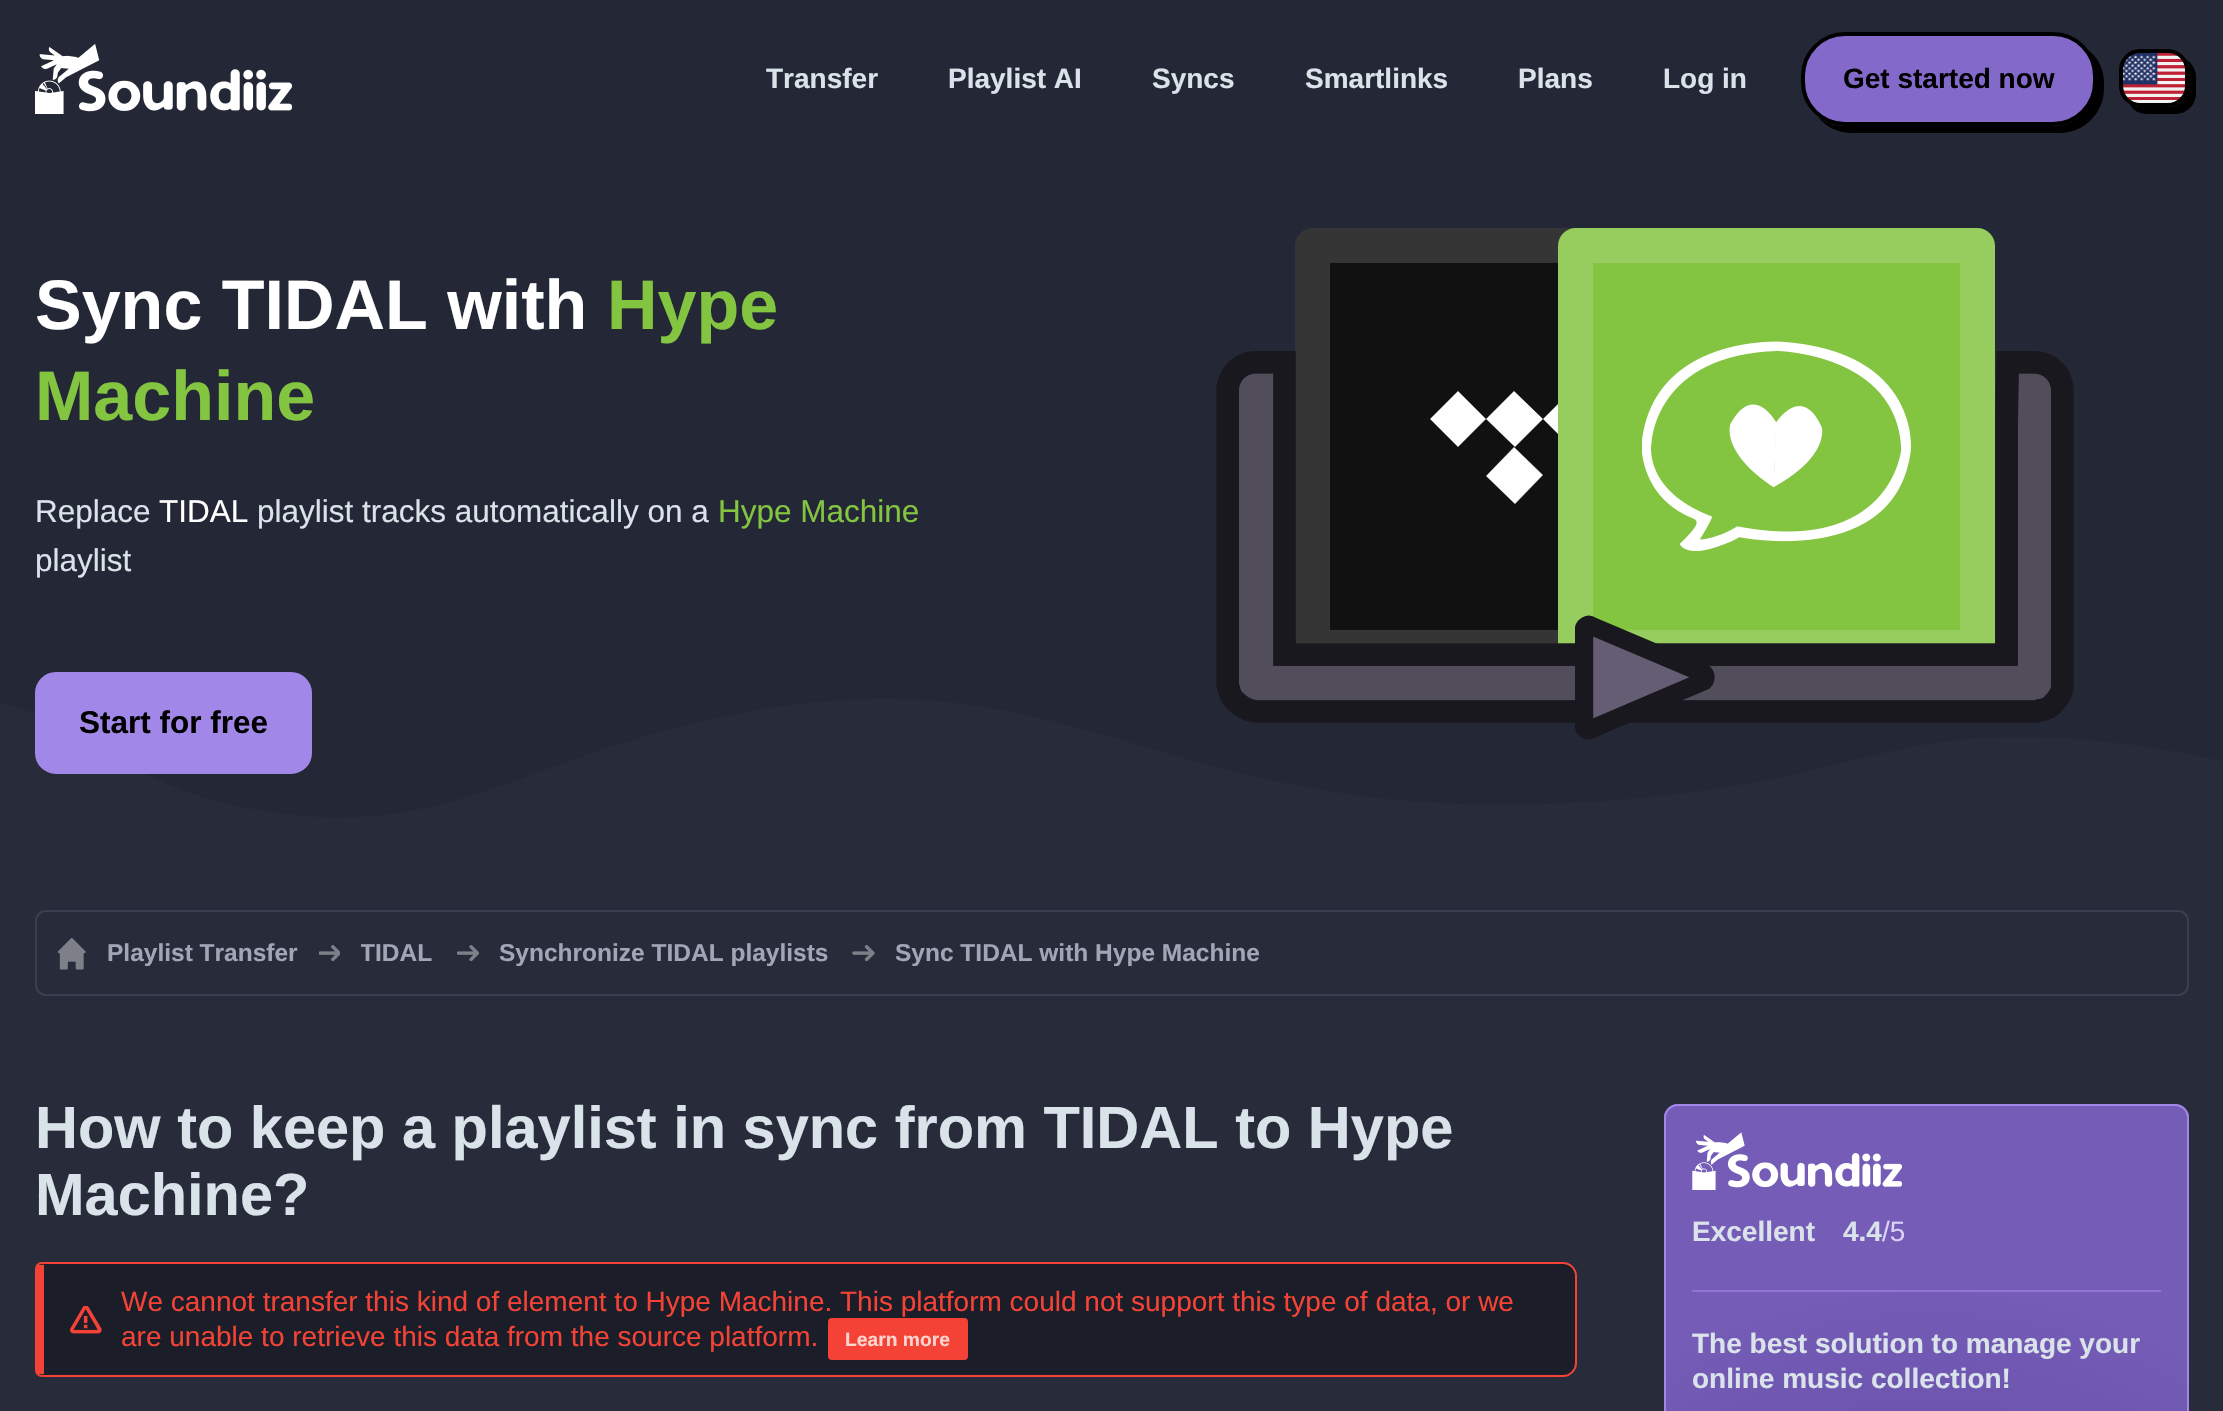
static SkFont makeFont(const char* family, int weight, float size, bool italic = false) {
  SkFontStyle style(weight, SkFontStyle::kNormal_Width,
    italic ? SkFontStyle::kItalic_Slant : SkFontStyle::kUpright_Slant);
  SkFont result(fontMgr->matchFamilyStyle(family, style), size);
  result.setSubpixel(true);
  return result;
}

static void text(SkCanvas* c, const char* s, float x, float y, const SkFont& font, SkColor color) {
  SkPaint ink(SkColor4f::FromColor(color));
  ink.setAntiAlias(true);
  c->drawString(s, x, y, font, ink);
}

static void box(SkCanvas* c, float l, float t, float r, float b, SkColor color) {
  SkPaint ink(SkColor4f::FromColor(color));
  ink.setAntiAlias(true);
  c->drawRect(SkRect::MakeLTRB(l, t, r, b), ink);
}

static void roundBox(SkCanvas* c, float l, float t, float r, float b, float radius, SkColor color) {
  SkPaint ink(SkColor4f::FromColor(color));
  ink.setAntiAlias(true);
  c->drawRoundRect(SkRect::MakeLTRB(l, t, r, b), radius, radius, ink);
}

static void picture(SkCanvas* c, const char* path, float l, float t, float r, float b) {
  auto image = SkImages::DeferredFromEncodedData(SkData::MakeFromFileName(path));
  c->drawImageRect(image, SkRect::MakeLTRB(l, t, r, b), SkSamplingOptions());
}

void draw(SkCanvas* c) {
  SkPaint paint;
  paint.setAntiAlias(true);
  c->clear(0xff282b39);
  box(c, 0, 0, 2223, 818, 0xff242735);
  picture(c, "img_01.png", 35, 44, 292, 114);
  SkFont face1 = makeFont("Liberation Sans", 700, 28);
  text(c, "Transfer", 766, 88, face1, 0xffdae3e9);
  text(c, "Playlist AI", 948, 88, face1, 0xffdae3e9);
  text(c, "Syncs", 1152, 88, face1, 0xffdae3e9);
  text(c, "Smartlinks", 1305, 88, face1, 0xffdae3e9);
  text(c, "Plans", 1518, 88, face1, 0xffdae3e9);
  text(c, "Log in", 1663, 88, face1, 0xffdae3e9);
  paint.setColor(0xff000000);
  c->drawPath(SkPathBuilder().moveTo(1818, 117).cubicTo(1826, 127, 1838, 133, 1852, 133).lineTo(2060, 133).cubicTo(2084, 133, 2104, 113, 2104, 89).lineTo(2104, 83).cubicTo(2104, 69, 2098, 57, 2087, 49).cubicTo(2093, 56, 2096, 65, 2096, 75).lineTo(2096, 82).cubicTo(2096, 106, 2077, 126, 2053, 126).lineTo(1844, 126).cubicTo(1835, 126, 1826, 123, 1818, 117).close().detach(), paint);
  paint.setColor(0xff8369c9);
  c->drawRoundRect(SkRect::MakeLTRB(1803, 34, 2095, 124), 42, 42, paint);
  paint.setStyle(SkPaint::kStroke_Style);
  paint.setStrokeWidth(4);
  paint.setColor(0xff000000);
  c->drawRoundRect(SkRect::MakeLTRB(1803, 34, 2095, 124), 42, 42, paint);
  text(c, "Get started now", 1843, 88, face1, 0xff000000);
  paint.setStyle(SkPaint::kFill_Style);
  c->drawPath(SkPathBuilder().moveTo(2129, 103).cubicTo(2132, 110, 2139, 114, 2147, 114).lineTo(2175, 114).cubicTo(2187, 114, 2196, 105, 2196, 93).lineTo(2196, 77).cubicTo(2196, 70, 2192, 63, 2186, 59).cubicTo(2188, 62, 2189, 66, 2189, 70).lineTo(2189, 86).cubicTo(2189, 97, 2180, 107, 2168, 107).lineTo(2140, 107).cubicTo(2136, 107, 2132, 105, 2129, 103).close().detach(), paint);
  picture(c, "img_02.png", 2123, 53, 2185, 103);
  paint.setStyle(SkPaint::kStroke_Style);
  c->drawRoundRect(SkRect::MakeLTRB(2121, 51, 2187, 105), 19, 19, paint);
  SkFont face2 = makeFont("Liberation Sans", 700, 70);
  text(c, "Sync TIDAL with", 35, 329, face2, 0xffffffff);
  text(c, "Hype", 607, 329, face2, 0xff83c441);
  text(c, "Machine", 35, 420, face2, 0xff83c441);
  SkFont face3 = makeFont("Liberation Sans", 400, 31.5f);
  text(c, "Replace", 35, 522, face3, 0xffdae3e9);
  text(c, "TIDAL", 159, 522, face3, 0xffffffff);
  text(c, "playlist tracks automatically on a", 257, 522, face3, 0xffdae3e9);
  text(c, "Hype Machine", 718, 522, face3, 0xff83c441);
  text(c, "playlist", 35, 571, face3, 0xffdae3e9);
  c->save();
  c->clipRect(SkRect::MakeLTRB(0, 667, 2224, 875));
  paint.setStyle(SkPaint::kFill_Style);
  paint.setColor(0xff282b39);
  c->drawPath(SkPathBuilder().moveTo(-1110, 788).cubicTo(-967, 710, -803, 659, -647, 708).cubicTo(-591, 726, -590, 739, -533, 754).cubicTo(-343, 805, -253, 687, -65, 694).cubicTo(91, 700, 92, 783, 264, 811).cubicTo(447, 841, 518, 760, 722, 717).cubicTo(1091, 639, 1156, 841, 1631, 799).cubicTo(1868, 778, 1890, 724, 2085, 740).cubicTo(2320, 759, 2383, 846, 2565, 815).cubicTo(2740, 786, 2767, 693, 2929, 671).cubicTo(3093, 649, 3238, 721, 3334, 785).lineTo(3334, 876).lineTo(-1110, 877).close().detach(), paint);
  c->restore();
  paint.setColor(0xffa187e8);
  c->drawRoundRect(SkRect::MakeLTRB(36, 673, 311, 773), 20, 20, paint);
  paint.setStyle(SkPaint::kStroke_Style);
  paint.setStrokeWidth(2);
  c->drawRoundRect(SkRect::MakeLTRB(36, 673, 311, 773), 20, 20, paint);
  SkFont face4 = makeFont("Liberation Sans", 700, 31.5f);
  text(c, "Start for free", 79, 733, face4, 0xff000000);
  roundBox(c, 1295, 228, 1733, 665, 18, 0xff111111);
  paint.setStyle(SkPaint::kFill_Style);
  paint.setColor(0xfffffefe);
  c->drawPath(SkPathBuilder().moveTo(1458, 391).lineTo(1486, 419).lineTo(1458, 447).lineTo(1430, 419).close().moveTo(1514, 391).lineTo(1543, 419).lineTo(1515, 447).lineTo(1486, 419).close().moveTo(1571, 391).lineTo(1600, 419).lineTo(1571, 447).lineTo(1543, 419).close().moveTo(1487, 475).lineTo(1514, 447).lineTo(1543, 475).lineTo(1515, 504).lineTo(1486, 476).close().detach(), paint);
  paint.setStyle(SkPaint::kStroke_Style);
  paint.setStrokeWidth(0.1f);
  paint.setColor(0xff010101);
  c->drawPath(SkPathBuilder().moveTo(1458, 390.5f).lineTo(1486, 418.5f).lineTo(1458, 447).lineTo(1430, 419).close().moveTo(1514.5f, 390.5f).lineTo(1543, 418.5f).lineTo(1514.5f, 447).lineTo(1486.5f, 419).close().moveTo(1571, 390.5f).lineTo(1599.5f, 419).lineTo(1571, 447).lineTo(1543, 419).close().moveTo(1486.5f, 475).lineTo(1514.5f, 447.5f).lineTo(1542.5f, 475.5f).lineTo(1514.5f, 504).lineTo(1486.5f, 476).close().detach(), paint);
  paint.setStyle(SkPaint::kFill_Style);
  paint.setColor(0x26ffffff);
  c->drawPath(SkPathBuilder(SkPathFillType::kEvenOdd).moveTo(1313, 228).cubicTo(1303, 228, 1295, 236, 1295, 246).lineTo(1295, 647).cubicTo(1295, 657, 1303, 665, 1313, 665).lineTo(1715, 665).cubicTo(1725, 665, 1733, 657, 1733, 647).lineTo(1733, 246).cubicTo(1733, 236, 1725, 228, 1715, 228).close().moveTo(1330, 263).lineTo(1330, 630).lineTo(1698, 630).lineTo(1698, 263).close().detach(), paint);
  roundBox(c, 1558, 228, 1995, 665, 18, 0xff83c441);
  picture(c, "img_03.png", 1642, 341, 1911, 551);
  c->drawPath(SkPathBuilder(SkPathFillType::kEvenOdd).moveTo(1576, 228).cubicTo(1566, 228, 1558, 236, 1558, 246).lineTo(1558, 647).cubicTo(1558, 657, 1566, 665, 1576, 665).lineTo(1977, 665).cubicTo(1987, 665, 1995, 657, 1995, 647).lineTo(1995, 246).cubicTo(1995, 236, 1987, 228, 1977, 228).close().moveTo(1593, 263).lineTo(1593, 630).lineTo(1960, 630).lineTo(1960, 263).close().detach(), paint);
  picture(c, "img_04.png", 1216, 351, 2074, 723);
  paint.setColor(0xff645d73);
  c->drawPath(SkPathBuilder().moveTo(1704, 681).lineTo(1592, 729).cubicTo(1589, 732, 1584, 730, 1584, 725).lineTo(1584, 629).cubicTo(1584, 626, 1589, 623, 1592, 626).lineTo(1704, 674).cubicTo(1706, 676, 1706, 679, 1704, 681).close().detach(), paint);
  c->save();
  c->clipRect(SkRect::MakeLTRB(1575, 613, 1715, 744));
  paint.setStyle(SkPaint::kStroke_Style);
  paint.setStrokeWidth(18.4f);
  paint.setColor(0xff1a181f);
  c->drawPath(SkPathBuilder().moveTo(1704, 681).lineTo(1591.5f, 729).cubicTo(1589, 731.5f, 1584, 730, 1584, 725.5f).lineTo(1584, 629.5f).cubicTo(1584, 626, 1589, 623, 1591.5f, 626).lineTo(1704, 673.5f).cubicTo(1706, 675.5f, 1706, 679, 1704, 681).close().detach(), paint);
  c->restore();
  paint.setStrokeWidth(2);
  paint.setColor(0xff3a3f50);
  c->drawRoundRect(SkRect::MakeLTRB(36, 911, 2188, 995), 10, 10, paint);
  picture(c, "img_05.png", 58, 938, 86, 970);
  SkFont face5 = makeFont("Liberation Sans", 700, 24.5f);
  text(c, "Playlist Transfer", 107, 961, face5, 0xffa1a6b6);
  picture(c, "img_06.png", 319, 945, 340, 961);
  c->save();
  c->clipRect(SkRect::MakeLTRB(361, 933, 432, 973));
  text(c, "TIDAL", 360, 961, face5, 0xffa1a6b6);
  c->restore();
  picture(c, "img_07.png", 457, 945, 479, 961);
  text(c, "Synchronize TIDAL playlists", 499, 961, face5, 0xffa1a6b6);
  picture(c, "img_08.png", 852, 945, 875, 961);
  text(c, "Sync TIDAL with Hype Machine", 895, 961, face5, 0xffa1a6b6);
  SkFont face6 = makeFont("Liberation Sans", 700, 59.5f);
  text(c, "How to keep a playlist in sync from TIDAL to Hype", 35, 1148, face6, 0xffdae3e9);
  text(c, "Machine?", 35, 1215, face6, 0xffdae3e9);
  paint.setStyle(SkPaint::kFill_Style);
  paint.setColor(0xff1b1e28);
  c->drawPath(SkPathBuilder().moveTo(44, 1264).lineTo(1563, 1264).cubicTo(1570, 1264, 1575, 1269, 1575, 1276).lineTo(1575, 1363).cubicTo(1575, 1370, 1570, 1376, 1563, 1376).lineTo(44, 1376).close().detach(), paint);
  picture(c, "img_09.png", 70, 1306, 102, 1334);
  paint.setStyle(SkPaint::kStroke_Style);
  paint.setColor(0xfff44336);
  c->drawPath(SkPathBuilder().moveTo(42, 1263).lineTo(1563, 1263).cubicTo(1570, 1263, 1576, 1269, 1576, 1276).lineTo(1576, 1363).cubicTo(1576, 1370, 1570, 1376, 1563, 1376).lineTo(42, 1376).cubicTo(38.5f, 1376, 36, 1373.5f, 36, 1370).lineTo(36, 1269).cubicTo(36, 1265.5f, 38.5f, 1263, 42, 1263).close().detach(), paint);
  box(c, 37, 1265, 44, 1374, 0xfff44336);
  SkFont face7 = makeFont("Liberation Sans", 400, 28);
  text(c, "We cannot transfer this kind of element to Hype Machine. This platform could not support this type of data, or we", 121, 1311, face7, 0xfff44336);
  text(c, "are unable to retrieve this data from the source platform.", 121, 1346, face7, 0xfff44336);
  roundBox(c, 828, 1318, 968, 1360, 4, 0xfff44336);
  SkFont face8 = makeFont("Liberation Sans", 700, 19.25f);
  text(c, "Learn more", 845, 1346, face8, 0xfffdd5cf);
  paint.setStyle(SkPaint::kFill_Style);
  {
    const SkColor colors[] = {0xff614aa0, 0xff745cb7};
    const float stops[] = {0.2f, 0.7f};
    paint.setShader(SkGradientShader::MakeRadial({1927, 1818}, 761, colors, stops, 2, SkTileMode::kClamp));
    paint.setAlpha(255);
  }
  c->drawRoundRect(SkRect::MakeLTRB(1664, 1104, 2189, 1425), 14, 14, paint);
  paint.setStyle(SkPaint::kStroke_Style);
  paint.setShader(nullptr);
  paint.setColor(0xffa187e8);
  c->drawRoundRect(SkRect::MakeLTRB(1665, 1105, 2188, 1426), 13, 13, paint);
  picture(c, "img_10.png", 1692, 1132, 1902, 1190);
  text(c, "Excellent", 1692, 1241, face1, 0xffdae3e9);
  text(c, "4.4", 1843, 1241, face1, 0xffdae3e9);
  text(c, "/5", 1882, 1241, face7, 0xffdad2f5);
  box(c, 1692, 1290, 2161, 1292, 0xff9373d8);
  text(c, "The best solution to manage your", 1692, 1353, face1, 0xffdae3e9);
  text(c, "online music collection!", 1692, 1388, face1, 0xffdae3e9);
}
